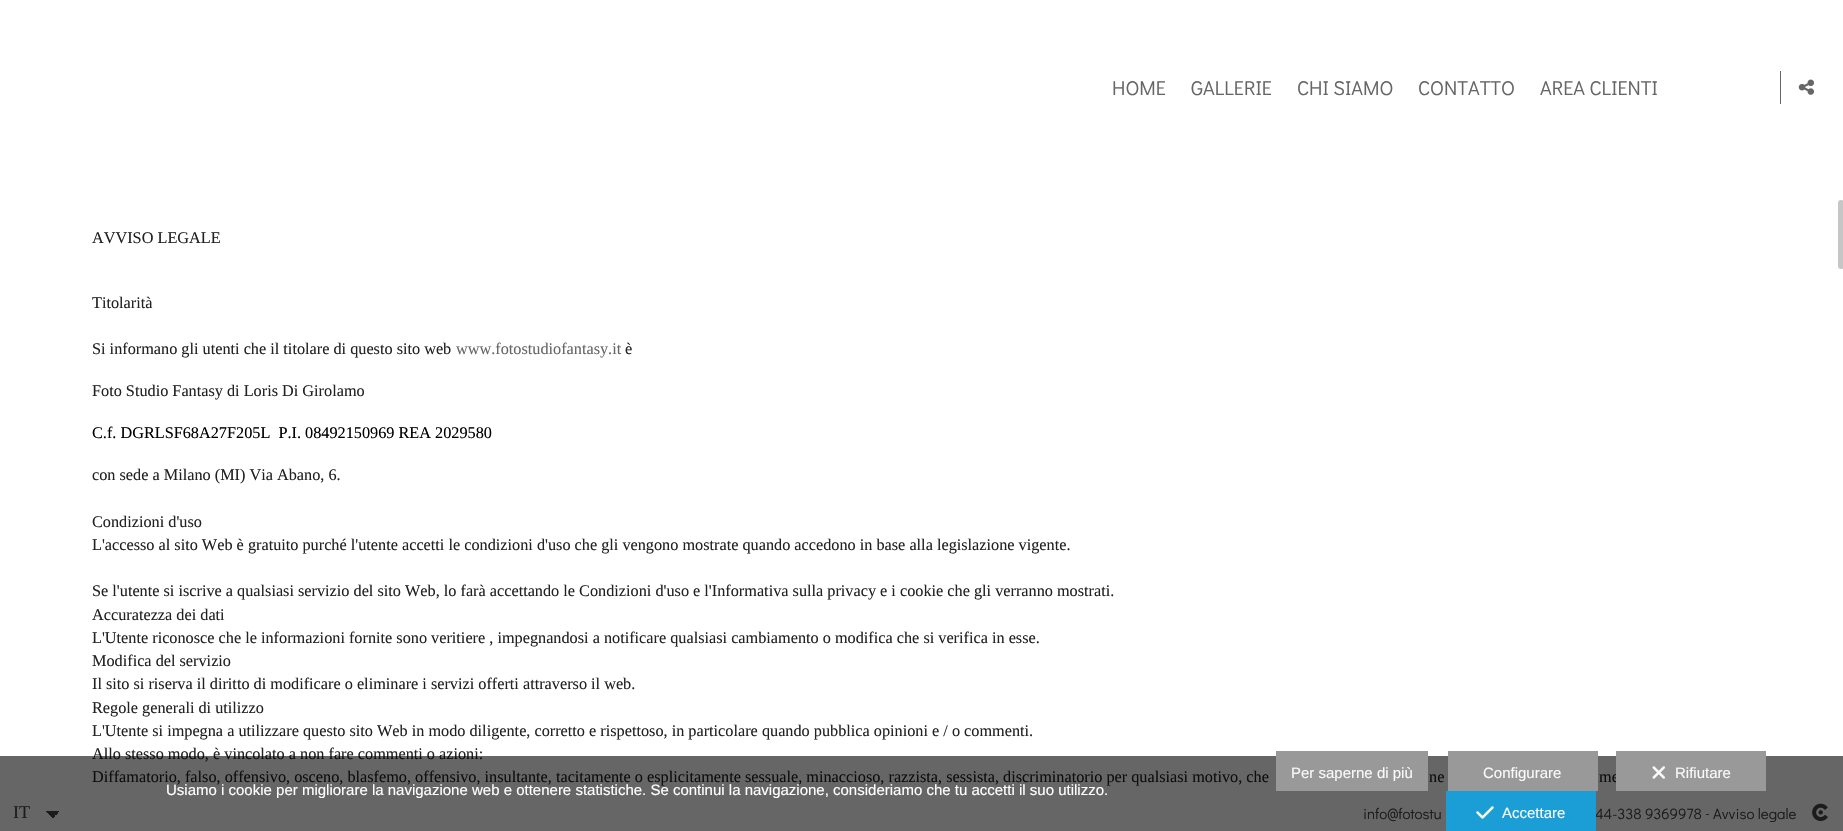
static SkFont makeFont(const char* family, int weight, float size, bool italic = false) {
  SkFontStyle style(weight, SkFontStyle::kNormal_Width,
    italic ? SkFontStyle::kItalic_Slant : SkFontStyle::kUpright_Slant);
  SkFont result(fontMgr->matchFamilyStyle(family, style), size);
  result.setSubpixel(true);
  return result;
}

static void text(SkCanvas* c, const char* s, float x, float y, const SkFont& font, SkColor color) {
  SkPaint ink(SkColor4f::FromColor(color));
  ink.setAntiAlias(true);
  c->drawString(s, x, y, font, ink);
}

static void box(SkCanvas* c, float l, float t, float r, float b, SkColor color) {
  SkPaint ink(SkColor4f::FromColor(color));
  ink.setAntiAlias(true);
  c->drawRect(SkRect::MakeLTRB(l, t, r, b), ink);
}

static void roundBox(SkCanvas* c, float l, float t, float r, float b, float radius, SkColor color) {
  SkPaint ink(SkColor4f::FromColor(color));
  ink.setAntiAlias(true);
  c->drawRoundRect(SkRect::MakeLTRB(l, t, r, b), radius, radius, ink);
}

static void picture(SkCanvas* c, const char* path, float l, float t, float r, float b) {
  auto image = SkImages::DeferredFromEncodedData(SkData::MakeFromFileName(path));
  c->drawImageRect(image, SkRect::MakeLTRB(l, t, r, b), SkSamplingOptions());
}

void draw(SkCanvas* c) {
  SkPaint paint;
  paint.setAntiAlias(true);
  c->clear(0xffffffff);
  SkFont face1 = makeFont("Didact Gothic", 400, 20);
  text(c, "HOME", 1112, 95, face1, 0xff666666);
  text(c, "GALLERIE", 1191, 95, face1, 0xff666666);
  text(c, "CHI SIAMO", 1297, 95, face1, 0xff666666);
  text(c, "CONTATTO", 1418, 95, face1, 0xff666666);
  text(c, "AREA CLIENTI", 1540, 95, face1, 0xff666666);
  box(c, 1780, 71, 1781, 104, 0xff666666);
  picture(c, "img_01.png", 1798, 79, 1814, 95);
  SkFont face2 = makeFont("Liberation Serif", 400, 16.25f);
  text(c, "AVVISO LEGALE", 92, 243, face2, 0xff222222);
  text(c, "Titolarità", 92, 308, face2, 0xff222222);
  text(c, "Si informano gli utenti che il titolare di questo sito web", 92, 354, face2, 0xff222222);
  text(c, "www.fotostudiofantasy.it", 456, 354, face2, 0xff666666);
  text(c, "è", 625, 354, face2, 0xff222222);
  text(c, "Foto Studio Fantasy di Loris Di Girolamo", 92, 396, face2, 0xff222222);
  text(c, "C.f. DGRLSF68A27F205L  P.I. 08492150969 REA 2029580", 92, 438, face2, 0xff000000);
  text(c, "con sede a Milano (MI) Via Abano, 6.", 92, 480, face2, 0xff222222);
  text(c, "Condizioni d'uso", 92, 527, face2, 0xff222222);
  text(c, "L'accesso al sito Web è gratuito purché l'utente accetti le condizioni d'uso che gli vengono mostrate quando accedono in base alla legislazione vigente.", 92, 550, face2, 0xff222222);
  text(c, "Se l'utente si iscrive a qualsiasi servizio del sito Web, lo farà accettando le Condizioni d'uso e l'Informativa sulla privacy e i cookie che gli verranno mostrati.", 92, 596, face2, 0xff222222);
  text(c, "Accuratezza dei dati", 92, 620, face2, 0xff222222);
  text(c, "L'Utente riconosce che le informazioni fornite sono veritiere , impegnandosi a notificare qualsiasi cambiamento o modifica che si verifica in esse.", 92, 643, face2, 0xff222222);
  text(c, "Modifica del servizio", 92, 666, face2, 0xff222222);
  text(c, "Il sito si riserva il diritto di modificare o eliminare i servizi offerti attraverso il web.", 92, 689, face2, 0xff222222);
  text(c, "Regole generali di utilizzo", 92, 713, face2, 0xff222222);
  text(c, "L'Utente si impegna a utilizzare questo sito Web in modo diligente, corretto e rispettoso, in particolare quando pubblica opinioni e / o commenti.", 92, 736, face2, 0xff222222);
  text(c, "Allo stesso modo, è vincolato a non fare commenti o azioni:", 92, 759, face2, 0xff222222);
  text(c, "Diffamatorio, falso, offensivo, osceno, blasfemo, offensivo, insultante, tacitamente o esplicitamente sessuale, minaccioso, razzista, sessista, discriminatorio per qualsiasi motivo, che", 92, 782, face2, 0xff222222);
  text(c, "ne", 1429, 782, face2, 0xff222222);
  text(c, "me", 1599, 782, face2, 0xff222222);
  {
    const SkColor colors[] = {0xff444444, 0xffffffff};
    const float stops[] = {0.5f, 0.5f};
    const SkPoint ends[] = {{53, 812}, {59, 818}};
    paint.setShader(SkGradientShader::MakeLinear(ends, colors, stops, 2, SkTileMode::kClamp));
    paint.setAlpha(255);
  }
  c->drawRect(SkRect::MakeLTRB(53, 811, 59, 818), paint);
  {
    const SkColor colors[] = {0xffffffff, 0xff444444};
    const float stops[] = {0.5f, 0.5f};
    const SkPoint ends[] = {{46, 818}, {53, 812}};
    paint.setShader(SkGradientShader::MakeLinear(ends, colors, stops, 2, SkTileMode::kClamp));
    paint.setAlpha(255);
  }
  c->drawRect(SkRect::MakeLTRB(46, 811, 53, 818), paint);
  SkFont face3 = makeFont("Liberation Serif", 400, 18);
  text(c, "IT", 13, 818, face3, 0xff444444);
  SkFont face4 = makeFont("Didact Gothic", 400, 15);
  text(c, "info@fotostu", 1363, 819, face4, 0xff444444);
  text(c, "44-338 9369978", 1595, 819, face4, 0xff444444);
  SkFont face5 = makeFont("Didact Gothic", 400, 14);
  text(c, "-", 1705, 818, face5, 0xff444444);
  text(c, "Avviso legale", 1713, 819, face4, 0xff444444);
  picture(c, "img_02.png", 1812, 803, 1828, 822);
  roundBox(c, 1838, 200, 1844, 269, 3, 0xffc6c6c6);
  box(c, 0, 756, 1843, 831, 0x99000000);
  SkFont face6 = makeFont("Liberation Sans", 400, 15);
  text(c, "Usiamo i cookie per migliorare la navigazione web e ottenere statistiche. Se continui la navigazione, consideriamo che tu accetti il suo utilizzo.", 166, 795, face6, 0xffffffff);
  box(c, 1276, 751, 1428, 791, 0xff999999);
  text(c, "Per saperne di più", 1291, 778, face6, 0xfff9f9f9);
  box(c, 1448, 751, 1598, 791, 0xff999999);
  text(c, "Configurare", 1483, 778, face6, 0xfff9f9f9);
  box(c, 1616, 751, 1766, 791, 0xff999999);
  picture(c, "img_03.png", 1652, 766, 1665, 779);
  text(c, "Rifiutare", 1675, 778, face6, 0xfff9f9f9);
  box(c, 1446, 791, 1596, 831, 0xff1a9ed5);
  picture(c, "img_04.png", 1476, 806, 1494, 819);
  text(c, "Accettare", 1502, 818, face6, 0xfff9f9f9);
}
